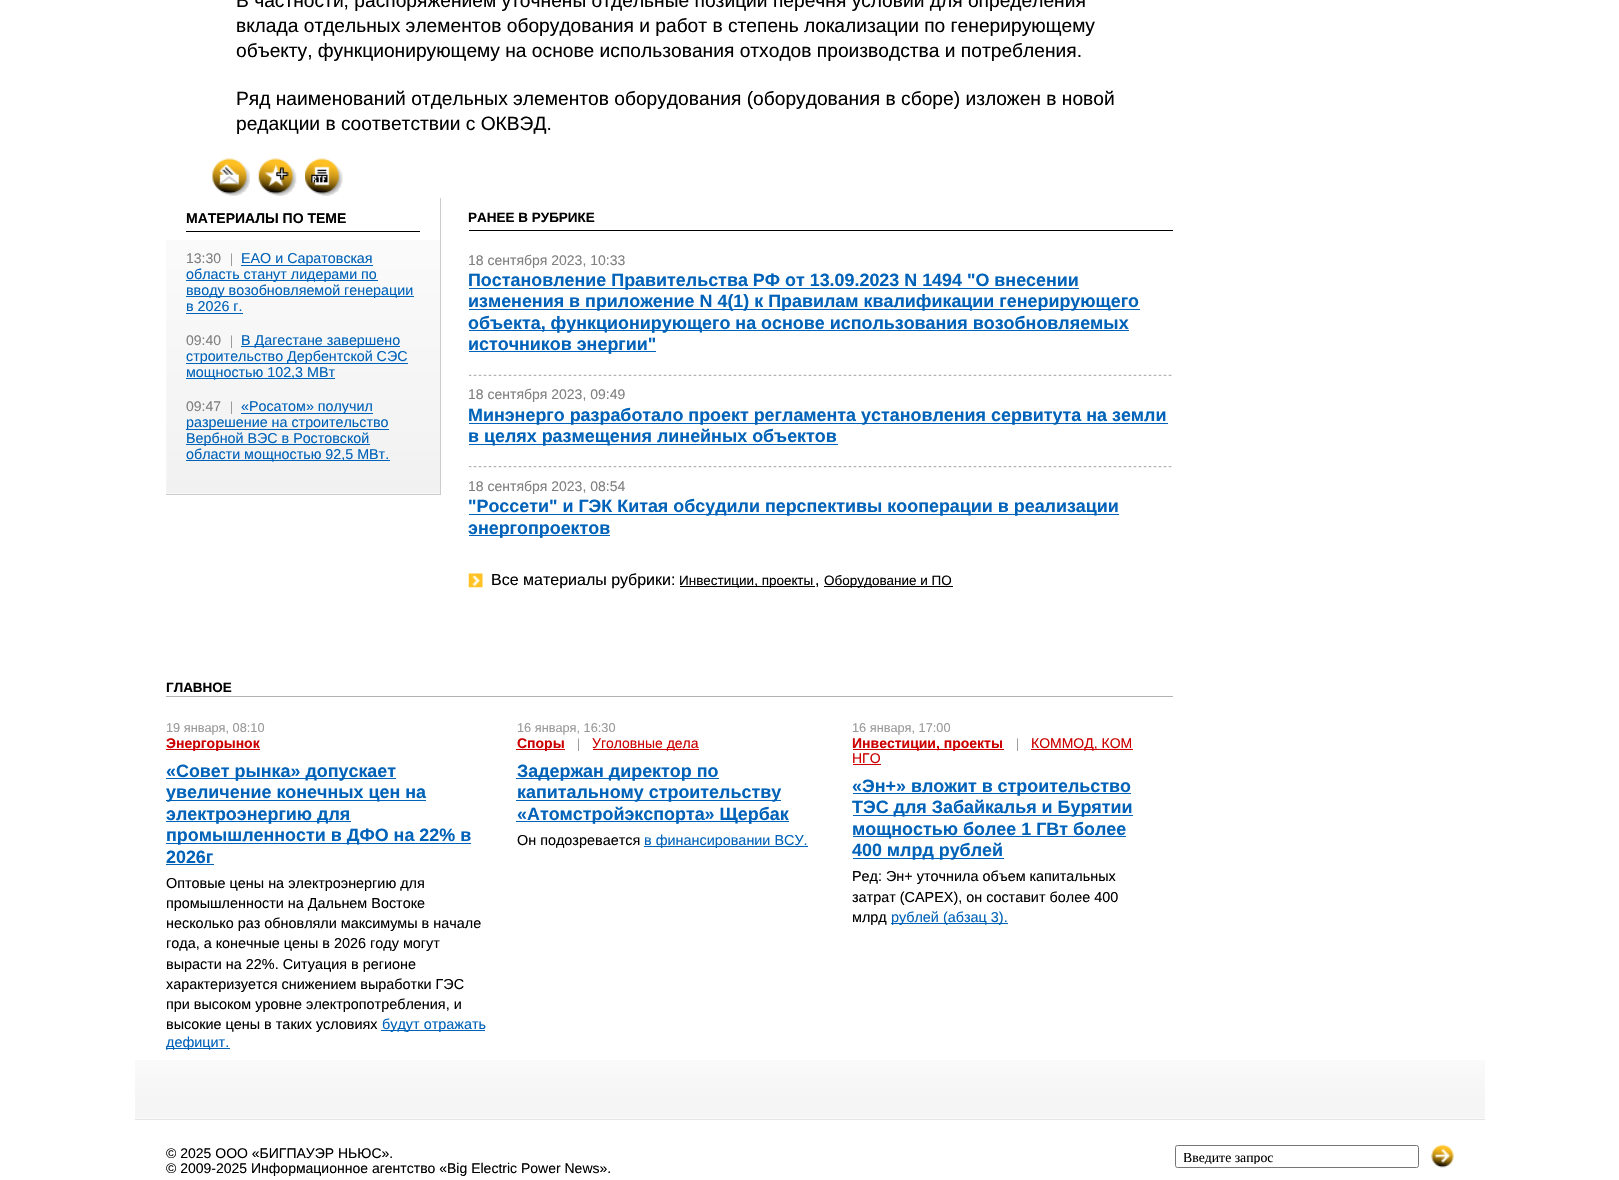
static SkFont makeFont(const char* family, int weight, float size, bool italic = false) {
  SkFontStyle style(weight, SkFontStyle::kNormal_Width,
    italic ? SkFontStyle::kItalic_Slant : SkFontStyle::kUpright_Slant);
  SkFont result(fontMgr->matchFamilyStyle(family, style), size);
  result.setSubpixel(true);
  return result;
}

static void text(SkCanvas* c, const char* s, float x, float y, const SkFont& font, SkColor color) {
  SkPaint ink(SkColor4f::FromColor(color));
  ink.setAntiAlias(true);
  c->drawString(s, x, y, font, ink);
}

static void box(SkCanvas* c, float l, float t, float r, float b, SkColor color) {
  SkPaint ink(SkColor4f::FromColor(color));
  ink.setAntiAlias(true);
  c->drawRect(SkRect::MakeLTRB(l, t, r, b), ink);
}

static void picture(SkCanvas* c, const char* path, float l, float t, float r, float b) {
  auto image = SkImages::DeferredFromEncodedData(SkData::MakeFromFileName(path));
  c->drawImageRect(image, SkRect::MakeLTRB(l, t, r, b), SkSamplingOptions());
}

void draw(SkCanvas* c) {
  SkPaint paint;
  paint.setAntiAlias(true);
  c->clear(0xffffffff);
  picture(c, "img_01.png", 135, 1060, 1485, 1119);
  SkFont face1 = makeFont("Liberation Sans", 400, 19.2f);
  text(c, "В частности, распоряжением уточнены отдельные позиции перечня условий для определения", 236, 7, face1, 0xff000000);
  text(c, "вклада отдельных элементов оборудования и работ в степень локализации по генерирующему", 236, 32, face1, 0xff000000);
  text(c, "объекту, функционирующему на основе использования отходов производства и потребления.", 236, 57, face1, 0xff000000);
  text(c, "Ряд наименований отдельных элементов оборудования (оборудования в сборе) изложен в новой", 236, 105, face1, 0xff000000);
  text(c, "редакции в соответствии с ОКВЭД.", 236, 130, face1, 0xff000000);
  picture(c, "img_02.png", 212, 158, 250, 196);
  picture(c, "img_03.png", 258, 158, 297, 196);
  picture(c, "img_04.png", 305, 158, 343, 196);
  picture(c, "img_05.png", 166, 240, 440, 494);
  box(c, 440, 198, 441, 495, 0xffcccccc);
  box(c, 166, 494, 441, 495, 0xffcccccc);
  box(c, 186, 231, 420, 232, 0xff000000);
  SkFont face2 = makeFont("Liberation Sans", 700, 14);
  text(c, "МАТЕРИАЛЫ ПО ТЕМЕ", 186, 223, face2, 0xff000000);
  SkFont face3 = makeFont("Liberation Sans", 400, 14);
  text(c, "13:30", 186, 263, face3, 0xff7f7f7f);
  SkFont face4 = makeFont("Liberation Serif", 400, 13.75f);
  text(c, "|", 230, 263, face4, 0xff7f7f7f);
  box(c, 241, 265, 373, 266, 0xff0062b8);
  SkFont face5 = makeFont("Liberation Sans", 400, 14.3f);
  text(c, "ЕАО и Саратовская", 241, 263, face5, 0xff0062b8);
  box(c, 186, 280, 378, 281, 0xff0062b8);
  text(c, "область станут лидерами по", 186, 279, face5, 0xff0062b8);
  box(c, 186, 296, 414, 297, 0xff0062b8);
  text(c, "вводу возобновляемой генерации", 186, 295, face5, 0xff0062b8);
  text(c, "в 2026 г.", 186, 311, face5, 0xff0062b8);
  box(c, 186, 313, 243, 314, 0xff0062b8);
  text(c, "09:40", 186, 345, face3, 0xff7f7f7f);
  text(c, "|", 230, 345, face4, 0xff7f7f7f);
  box(c, 241, 346, 400, 347, 0xff0062b8);
  text(c, "В Дагестане завершено", 241, 345, face5, 0xff0062b8);
  box(c, 186, 363, 408, 364, 0xff0062b8);
  text(c, "строительство Дербентской СЭС", 186, 361, face5, 0xff0062b8);
  box(c, 186, 378, 335, 379, 0xff0062b8);
  text(c, "мощностью 102,3 МВт", 186, 377, face5, 0xff0062b8);
  text(c, "09:47", 186, 411, face3, 0xff7f7f7f);
  text(c, "|", 230, 411, face4, 0xff7f7f7f);
  box(c, 241, 413, 373, 414, 0xff0062b8);
  text(c, "«Росатом» получил", 241, 411, face5, 0xff0062b8);
  box(c, 186, 429, 389, 430, 0xff0062b8);
  text(c, "разрешение на строительство", 186, 427, face5, 0xff0062b8);
  box(c, 186, 444, 370, 445, 0xff0062b8);
  text(c, "Вербной ВЭС в Ростовской", 186, 443, face5, 0xff0062b8);
  box(c, 186, 460, 390, 461, 0xff0062b8);
  text(c, "области мощностью 92,5 МВт.", 186, 459, face5, 0xff0062b8);
  box(c, 469, 230, 1173, 231, 0xff000000);
  SkFont face6 = makeFont("Liberation Sans", 700, 13.5f);
  text(c, "РАНЕЕ В РУБРИКЕ", 468, 222, face6, 0xff000000);
  text(c, "18 сентября 2023, 10:33", 468, 265, face3, 0xff7f7f7f);
  box(c, 469, 288, 1079, 289, 0xff0063bb);
  SkFont face7 = makeFont("Liberation Sans", 700, 17.9f);
  text(c, "Постановление Правительства РФ от 13.09.2023 N 1494 \"О внесении", 468, 286, face7, 0xff0062b8);
  box(c, 469, 309, 1140, 310, 0xff0063bb);
  text(c, "изменения в приложение N 4(1) к Правилам квалификации генерирующего", 468, 307, face7, 0xff0062b8);
  box(c, 469, 330, 1129, 331, 0xff0063bb);
  text(c, "объекта, функционирующего на основе использования возобновляемых", 468, 329, face7, 0xff0062b8);
  box(c, 469, 351, 656, 352, 0xff0063bb);
  text(c, "источников энергии\"", 468, 350, face7, 0xff0062b8);
  picture(c, "img_06.png", 468, 374, 1172, 376);
  text(c, "18 сентября 2023, 09:49", 468, 399, face3, 0xff7f7f7f);
  box(c, 469, 423, 1168, 424, 0xff0063bb);
  text(c, "Минэнерго разработало проект регламента установления сервитута на земли", 468, 421, face7, 0xff0062b8);
  box(c, 469, 444, 838, 445, 0xff0063bb);
  text(c, "в целях размещения линейных объектов", 468, 442, face7, 0xff0062b8);
  picture(c, "img_07.png", 468, 466, 1172, 468);
  text(c, "18 сентября 2023, 08:54", 468, 491, face3, 0xff7f7f7f);
  box(c, 469, 514, 1119, 515, 0xff0063bb);
  text(c, "\"Россети\" и ГЭК Китая обсудили перспективы кооперации в реализации", 468, 512, face7, 0xff0062b8);
  box(c, 469, 535, 610, 536, 0xff0063bb);
  text(c, "энергопроектов", 468, 534, face7, 0xff0062b8);
  picture(c, "img_08.png", 468, 573, 483, 588);
  SkFont face8 = makeFont("Liberation Sans", 400, 16);
  text(c, "Все материалы рубрики:", 491, 585, face8, 0xff000000);
  box(c, 680, 586, 815, 587, 0xff000000);
  SkFont face9 = makeFont("Liberation Sans", 400, 13.5f);
  text(c, "Инвестиции, проекты", 679, 585, face9, 0xff000000);
  text(c, ",", 815, 585, face8, 0xff000000);
  box(c, 824, 586, 953, 587, 0xff000000);
  text(c, "Оборудование и ПО", 824, 585, face9, 0xff000000);
  box(c, 166, 696, 1173, 697, 0xffb2b2b2);
  text(c, "ГЛАВНОЕ", 166, 692, face6, 0xff000000);
  SkFont face10 = makeFont("Liberation Sans", 400, 12.75f);
  text(c, "19 января, 08:10", 166, 732, face10, 0xff999999);
  box(c, 166, 749, 260, 750, 0xffcc0000);
  text(c, "Энергорынок", 166, 748, face2, 0xffcc0000);
  box(c, 166, 778, 396, 779, 0xff0063bb);
  text(c, "«Совет рынка» допускает", 166, 777, face7, 0xff0062b8);
  box(c, 166, 800, 426, 801, 0xff0063bb);
  text(c, "увеличение конечных цен на", 166, 798, face7, 0xff0062b8);
  box(c, 166, 821, 351, 822, 0xff0063bb);
  text(c, "электроэнергию для", 166, 820, face7, 0xff0062b8);
  box(c, 166, 843, 471, 844, 0xff0063bb);
  text(c, "промышленности в ДФО на 22% в", 166, 841, face7, 0xff0062b8);
  text(c, "2026г", 166, 863, face7, 0xff0062b8);
  box(c, 166, 864, 214, 865, 0xff0063bb);
  SkFont face11 = makeFont("Liberation Sans", 400, 14.4f);
  text(c, "Оптовые цены на электроэнергию для", 166, 888, face11, 0xff000000);
  text(c, "промышленности на Дальнем Востоке", 166, 908, face11, 0xff000000);
  text(c, "несколько раз обновляли максимумы в начале", 166, 928, face11, 0xff000000);
  text(c, "года, а конечные цены в 2026 году могут", 166, 948, face11, 0xff000000);
  text(c, "вырасти на 22%. Ситуация в регионе", 166, 969, face11, 0xff000000);
  text(c, "характеризуется снижением выработки ГЭС", 166, 989, face11, 0xff000000);
  text(c, "при высоком уровне электропотребления, и", 166, 1009, face11, 0xff000000);
  text(c, "высокие цены в таких условиях", 166, 1029, face11, 0xff000000);
  box(c, 381, 1030, 485, 1031, 0xff0062b8);
  text(c, "будут отражать", 382, 1029, face11, 0xff0062b8);
  box(c, 166, 1048, 230, 1049, 0xff0062b8);
  text(c, "дефицит.", 166, 1047, face11, 0xff0062b8);
  text(c, "16 января, 16:30", 517, 732, face10, 0xff999999);
  box(c, 516, 749, 565, 750, 0xffcc0000);
  text(c, "Споры", 517, 748, face2, 0xffcc0000);
  text(c, "|", 577, 748, face4, 0xff7f7f7f);
  box(c, 593, 749, 699, 750, 0xffcc0000);
  text(c, "Уголовные дела", 592, 748, face3, 0xffcc0000);
  box(c, 516, 778, 719, 779, 0xff0063bb);
  text(c, "Задержан директор по", 517, 777, face7, 0xff0062b8);
  box(c, 516, 800, 781, 801, 0xff0063bb);
  text(c, "капитальному строительству", 517, 798, face7, 0xff0062b8);
  box(c, 516, 821, 789, 822, 0xff0063bb);
  text(c, "«Атомстройэкспорта» Щербак", 517, 820, face7, 0xff0062b8);
  text(c, "Он подозревается", 517, 845, face11, 0xff000000);
  box(c, 644, 846, 808, 847, 0xff0062b8);
  text(c, "в финансировании ВСУ.", 644, 845, face11, 0xff0062b8);
  text(c, "16 января, 17:00", 852, 732, face10, 0xff999999);
  box(c, 853, 749, 1004, 750, 0xffcc0000);
  text(c, "Инвестиции, проекты", 852, 748, face2, 0xffcc0000);
  text(c, "|", 1016, 748, face4, 0xff7f7f7f);
  box(c, 1031, 749, 1133, 750, 0xffcc0000);
  text(c, "КОММОД, КОМ", 1031, 748, face3, 0xffcc0000);
  text(c, "НГО", 852, 763, face3, 0xffcc0000);
  box(c, 853, 764, 881, 765, 0xffcc0000);
  box(c, 853, 793, 1131, 794, 0xff0063bb);
  text(c, "«Эн+» вложит в строительство", 852, 792, face7, 0xff0062b8);
  box(c, 853, 815, 1133, 816, 0xff0063bb);
  text(c, "ТЭС для Забайкалья и Бурятии", 852, 813, face7, 0xff0062b8);
  box(c, 853, 836, 1126, 837, 0xff0063bb);
  text(c, "мощностью более 1 ГВт более", 852, 835, face7, 0xff0062b8);
  box(c, 853, 858, 1004, 859, 0xff0063bb);
  text(c, "400 млрд рублей", 852, 856, face7, 0xff0062b8);
  text(c, "Ред: Эн+ уточнила объем капитальных", 852, 881, face11, 0xff000000);
  text(c, "затрат (CAPEX), он составит более 400", 852, 902, face11, 0xff000000);
  text(c, "млрд", 852, 922, face11, 0xff000000);
  box(c, 891, 923, 1008, 924, 0xff0062b8);
  text(c, "рублей (абзац 3).", 891, 922, face11, 0xff0062b8);
  box(c, 135, 1119, 1485, 1120, 0xffe5e5e5);
  text(c, "© 2025 ООО «БИГПАУЭР НЬЮС».", 166, 1158, face3, 0xff000000);
  text(c, "© 2009-2025 Информационное агентство «Big Electric Power News».", 166, 1173, face3, 0xff000000);
  paint.setStyle(SkPaint::kStroke_Style);
  paint.setStrokeWidth(1);
  paint.setColor(0xff767676);
  c->drawRoundRect(SkRect::MakeLTRB(1175.5f, 1145.5f, 1418.5f, 1167.5f), 2, 2, paint);
  c->save();
  c->clipRect(SkRect::MakeLTRB(1184, 1149, 1414, 1164));
  text(c, "Введите запрос", 1183, 1162, face4, 0xff000000);
  c->restore();
  picture(c, "img_09.png", 1431, 1144, 1454, 1168);
}
